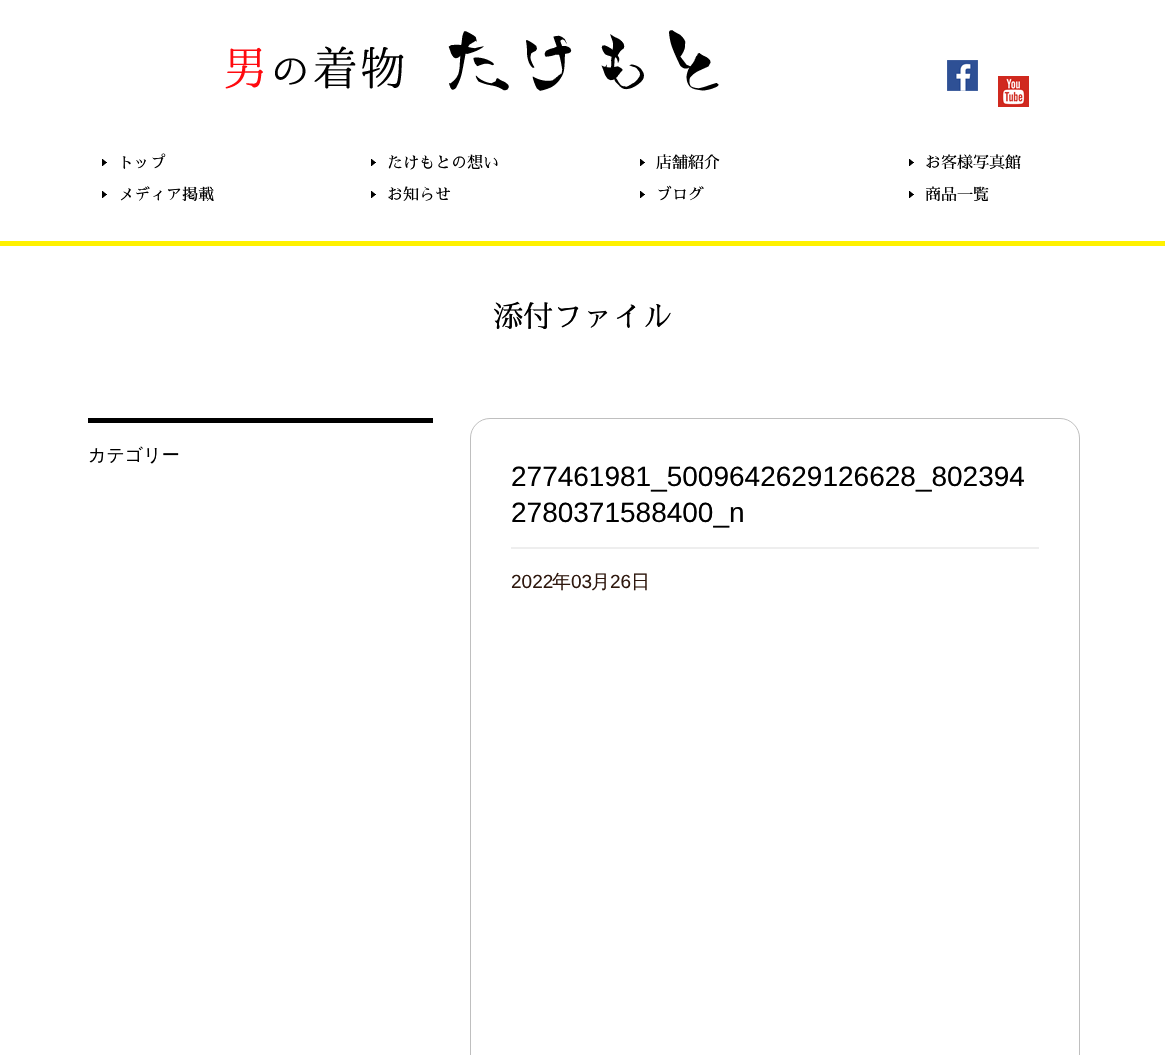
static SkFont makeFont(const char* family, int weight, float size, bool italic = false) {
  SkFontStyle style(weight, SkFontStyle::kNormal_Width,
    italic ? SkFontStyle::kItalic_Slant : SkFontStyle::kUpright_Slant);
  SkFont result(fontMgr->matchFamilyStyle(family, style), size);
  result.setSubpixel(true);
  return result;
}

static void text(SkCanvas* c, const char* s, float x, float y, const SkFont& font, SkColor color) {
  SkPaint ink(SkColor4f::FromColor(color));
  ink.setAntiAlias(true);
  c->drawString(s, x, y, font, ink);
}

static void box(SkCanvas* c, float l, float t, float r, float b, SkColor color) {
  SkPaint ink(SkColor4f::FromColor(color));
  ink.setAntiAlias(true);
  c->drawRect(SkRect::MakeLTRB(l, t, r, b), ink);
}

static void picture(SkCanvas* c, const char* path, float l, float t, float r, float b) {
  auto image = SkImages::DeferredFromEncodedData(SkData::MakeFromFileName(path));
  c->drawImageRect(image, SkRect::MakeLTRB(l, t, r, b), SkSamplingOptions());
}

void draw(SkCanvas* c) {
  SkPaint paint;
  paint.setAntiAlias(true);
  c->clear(0xffffffff);
  picture(c, "img_01.png", 225, 30, 719, 91);
  picture(c, "img_02.png", 947, 60, 978, 91);
  picture(c, "img_03.png", 998, 76, 1029, 107);
  picture(c, "img_04.png", 102, 159, 107, 166);
  SkFont face1 = makeFont("Sawarabi Mincho", 400, 16);
  text(c, "トップ", 118, 168, face1, 0xff000000);
  picture(c, "img_04.png", 371, 159, 376, 166);
  text(c, "たけもとの想い", 387, 168, face1, 0xff000000);
  picture(c, "img_04.png", 640, 159, 645, 166);
  text(c, "店舗紹介", 656, 168, face1, 0xff000000);
  picture(c, "img_04.png", 909, 159, 914, 166);
  text(c, "お客様写真館", 925, 168, face1, 0xff000000);
  picture(c, "img_04.png", 102, 191, 107, 198);
  text(c, "メディア掲載", 118, 200, face1, 0xff000000);
  picture(c, "img_04.png", 371, 191, 376, 198);
  text(c, "お知らせ", 387, 200, face1, 0xff000000);
  picture(c, "img_04.png", 640, 191, 645, 198);
  text(c, "ブログ", 656, 200, face1, 0xff000000);
  picture(c, "img_04.png", 909, 191, 914, 198);
  text(c, "商品一覧", 925, 200, face1, 0xff000000);
  box(c, 0, 241, 1165, 246, 0xfffff100);
  SkFont face2 = makeFont("Sawarabi Mincho", 400, 30);
  text(c, "添付ファイル", 493, 327, face2, 0xff000000);
  box(c, 88, 418, 433, 423, 0xff000000);
  SkFont face3 = makeFont("WenQuanYi Zen Hei", 500, 18);
  text(c, "カテゴリー", 88, 461, face3, 0xff000000);
  paint.setStyle(SkPaint::kStroke_Style);
  paint.setStrokeWidth(1);
  paint.setColor(0xffbfbfbf);
  c->drawRoundRect(SkRect::MakeLTRB(470.5f, 418.5f, 1079.5f, 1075.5f), 19.5f, 19.5f, paint);
  box(c, 511, 547, 1039, 549, 0xffeeeeee);
  SkFont face4 = makeFont("Liberation Sans", 400, 28);
  text(c, "277461981_5009642629126628_802394", 511, 486, face4, 0xff000000);
  text(c, "2780371588400_n", 511, 522, face4, 0xff000000);
  SkFont face5 = makeFont("Liberation Sans", 400, 19);
  text(c, "2022", 511, 588, face5, 0xff2f180e);
  SkFont face6 = makeFont("WenQuanYi Zen Hei", 500, 19);
  text(c, "年", 552, 588, face6, 0xff2f180e);
  text(c, "03", 571, 588, face5, 0xff2f180e);
  text(c, "月", 591, 588, face6, 0xff2f180e);
  text(c, "26", 610, 588, face5, 0xff2f180e);
  text(c, "日", 631, 588, face6, 0xff2f180e);
}
